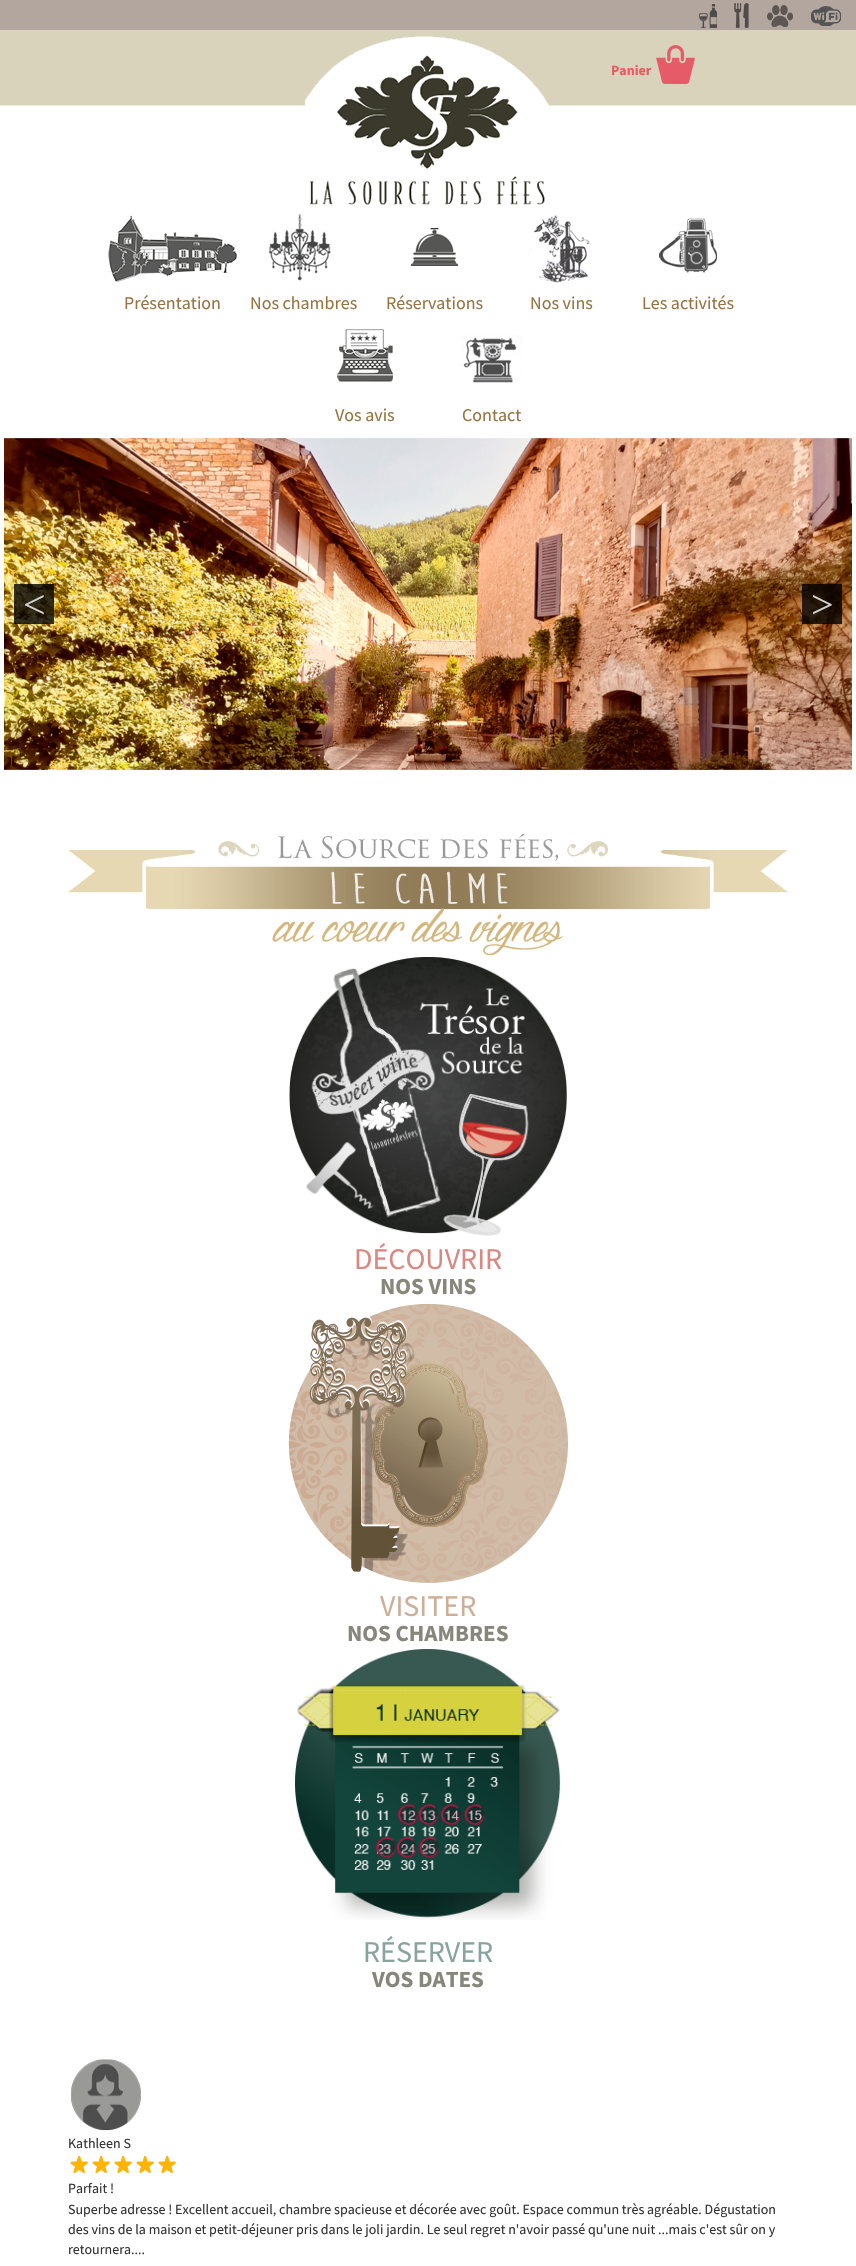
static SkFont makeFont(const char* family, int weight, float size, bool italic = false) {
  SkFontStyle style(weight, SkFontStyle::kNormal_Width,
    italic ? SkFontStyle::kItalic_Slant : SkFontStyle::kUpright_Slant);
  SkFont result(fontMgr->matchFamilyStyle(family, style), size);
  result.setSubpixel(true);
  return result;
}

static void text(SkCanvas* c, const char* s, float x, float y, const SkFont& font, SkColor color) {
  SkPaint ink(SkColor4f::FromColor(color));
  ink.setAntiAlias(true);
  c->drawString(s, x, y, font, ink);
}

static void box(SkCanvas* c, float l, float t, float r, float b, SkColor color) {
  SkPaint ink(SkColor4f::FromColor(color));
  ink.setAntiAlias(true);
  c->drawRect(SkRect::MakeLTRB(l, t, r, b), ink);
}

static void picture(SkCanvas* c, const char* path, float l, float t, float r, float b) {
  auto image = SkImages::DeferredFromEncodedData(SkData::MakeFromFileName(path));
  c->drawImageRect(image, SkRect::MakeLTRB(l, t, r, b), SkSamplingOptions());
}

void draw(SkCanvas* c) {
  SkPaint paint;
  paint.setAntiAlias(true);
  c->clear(0xffffffff);
  picture(c, "img_01.png", 0, 0, 856, 106);
  picture(c, "img_02.png", 699, 4, 717, 28);
  picture(c, "img_03.png", 734, 3, 749, 28);
  picture(c, "img_04.png", 767, 5, 793, 27);
  picture(c, "img_05.png", 811, 6, 841, 26);
  SkFont face1 = makeFont("Source Sans Pro", 700, 14);
  text(c, "Panier", 611, 75, face1, 0xffe55c68);
  picture(c, "img_06.png", 656, 45, 695, 84);
  picture(c, "img_07.png", 305, 51, 549, 205);
  picture(c, "img_08.png", 108, 215, 237, 282);
  SkFont face2 = makeFont("Source Sans Pro", 400, 18);
  text(c, "Présentation", 124, 309, face2, 0xff967340);
  picture(c, "img_09.png", 269, 214, 331, 282);
  text(c, "Nos chambres", 250, 309, face2, 0xff967340);
  picture(c, "img_10.png", 411, 227, 458, 266);
  text(c, "Réservations", 386, 309, face2, 0xff967340);
  picture(c, "img_11.png", 530, 215, 590, 283);
  text(c, "Nos vins", 530, 309, face2, 0xff967340);
  picture(c, "img_12.png", 659, 218, 717, 273);
  text(c, "Les activités", 642, 309, face2, 0xff967340);
  picture(c, "img_13.png", 337, 329, 393, 382);
  text(c, "Vos avis", 335, 421, face2, 0xff967340);
  picture(c, "img_14.png", 461, 335, 522, 383);
  text(c, "Contact", 462, 421, face2, 0xff967340);
  picture(c, "img_15.png", 4, 438, 852, 770);
  box(c, 14, 584, 54, 624, 0xcc000000);
  SkFont face3 = makeFont("Liberation Serif", 400, 40);
  text(c, "<", 23, 618, face3, 0xffd4d2cf);
  box(c, 802, 584, 842, 624, 0xcc000000);
  text(c, ">", 811, 618, face3, 0xffd4d2cf);
  picture(c, "img_16.png", 68, 834, 788, 956);
  picture(c, "img_17.png", 289, 957, 567, 1236);
  SkFont face4 = makeFont("Source Sans Pro", 400, 30);
  text(c, "DÉCOUVRIR", 354, 1269, face4, 0xffda8882);
  SkFont face5 = makeFont("Source Sans Pro", 700, 23);
  text(c, "NOS VINS", 380, 1294, face5, 0xff87867a);
  picture(c, "img_18.png", 288, 1303, 568, 1583);
  text(c, "VISITER", 380, 1616, face4, 0xffcdae97);
  text(c, "NOS CHAMBRES", 347, 1641, face5, 0xff87867a);
  picture(c, "img_19.png", 295, 1649, 561, 1920);
  text(c, "RÉSERVER", 363, 1962, face4, 0xff89a49e);
  text(c, "VOS DATES", 372, 1987, face5, 0xff87867a);
  picture(c, "img_20.png", 71, 2059, 141, 2131);
  SkFont face6 = makeFont("Source Sans Pro", 400, 14);
  text(c, "Kathleen S", 68, 2148, face6, 0xff333333);
  picture(c, "img_21.png", 70, 2156, 88, 2173);
  picture(c, "img_21.png", 92, 2156, 110, 2173);
  picture(c, "img_21.png", 114, 2156, 132, 2173);
  picture(c, "img_21.png", 136, 2156, 154, 2173);
  picture(c, "img_21.png", 158, 2156, 176, 2173);
  text(c, "Parfait !", 68, 2193, face6, 0xff333333);
  text(c, "Superbe adresse ! Excellent accueil, chambre spacieuse et décorée avec goût. Espace commun très agréable. Dégustation", 68, 2214, face6, 0xff333333);
  text(c, "des vins de la maison et petit-déjeuner pris dans le joli jardin. Le seul regret n'avoir passé qu'une nuit ...mais c'est sûr on y", 68, 2234, face6, 0xff333333);
  text(c, "retournera....", 68, 2254, face6, 0xff333333);
}
